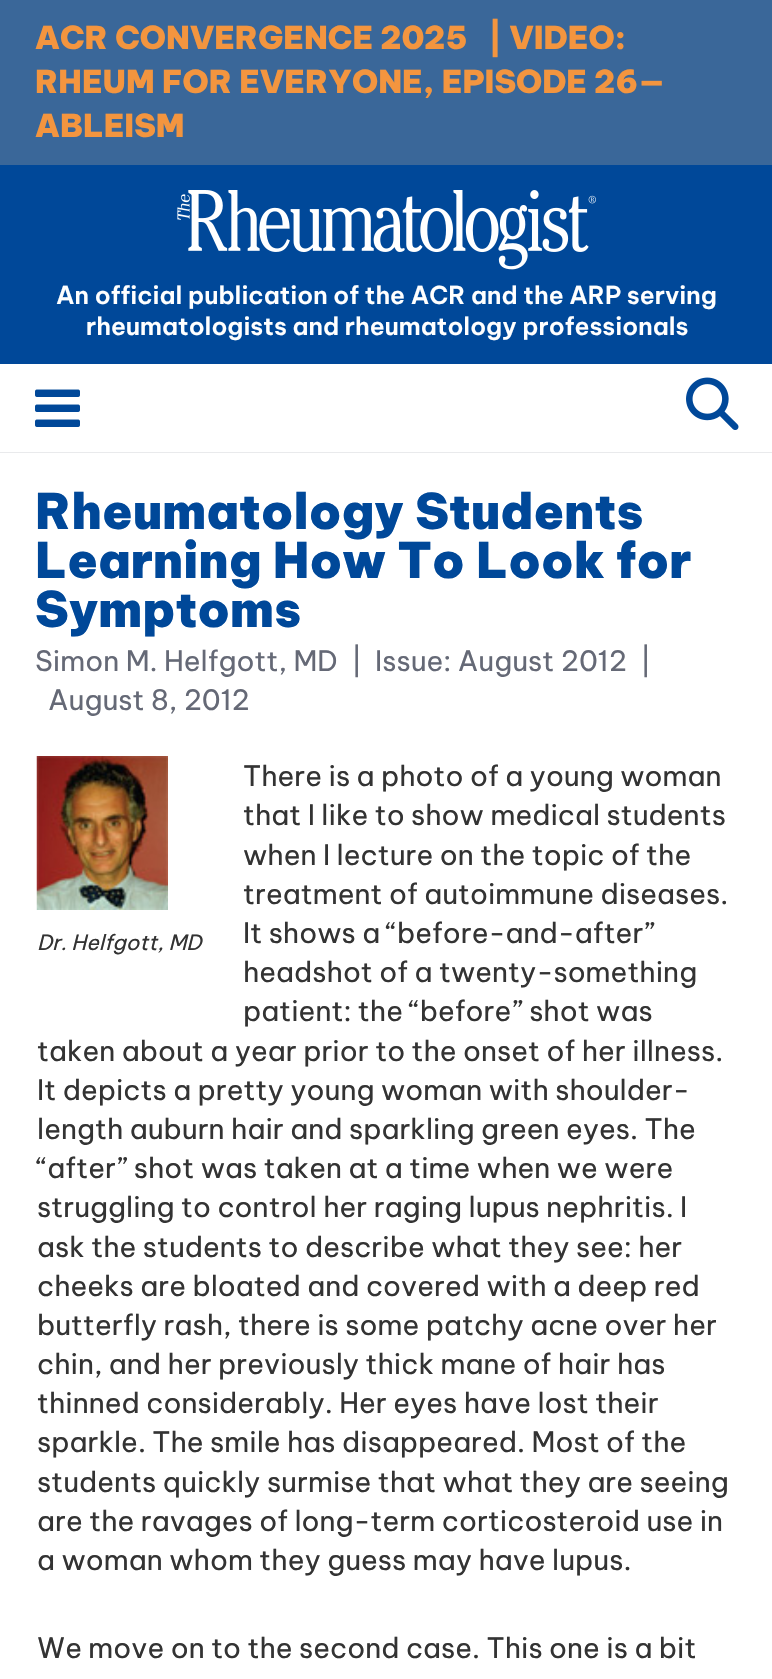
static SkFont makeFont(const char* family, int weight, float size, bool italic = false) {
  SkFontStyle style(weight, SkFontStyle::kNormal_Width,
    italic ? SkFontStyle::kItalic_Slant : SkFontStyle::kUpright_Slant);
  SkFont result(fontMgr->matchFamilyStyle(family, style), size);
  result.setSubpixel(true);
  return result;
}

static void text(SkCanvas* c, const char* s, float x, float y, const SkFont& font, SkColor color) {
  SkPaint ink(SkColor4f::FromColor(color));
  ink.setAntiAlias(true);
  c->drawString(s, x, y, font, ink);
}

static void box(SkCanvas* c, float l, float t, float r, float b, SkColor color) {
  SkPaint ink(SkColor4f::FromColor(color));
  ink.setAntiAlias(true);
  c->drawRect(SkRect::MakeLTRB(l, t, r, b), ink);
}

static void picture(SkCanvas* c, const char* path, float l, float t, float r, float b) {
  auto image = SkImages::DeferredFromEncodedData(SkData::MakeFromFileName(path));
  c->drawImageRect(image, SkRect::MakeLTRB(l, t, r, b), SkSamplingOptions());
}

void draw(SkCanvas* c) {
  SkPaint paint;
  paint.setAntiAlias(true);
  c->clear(0xffffffff);
  box(c, 0, 0, 772, 165, 0xff3a6799);
  SkFont face1 = makeFont("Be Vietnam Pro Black", 900, 31.5f);
  text(c, "ACR CONVERGENCE 2025", 35, 49, face1, 0xfff3953f);
  text(c, "| VIDEO:", 488, 49, face1, 0xfff3953f);
  text(c, "RHEUM FOR EVERYONE, EPISODE 26—", 35, 93, face1, 0xfff3953f);
  text(c, "ABLEISM", 35, 137, face1, 0xfff3953f);
  box(c, 0, 165, 772, 364, 0xff004899);
  picture(c, "img_01.png", 177, 190, 596, 270);
  SkFont face2 = makeFont("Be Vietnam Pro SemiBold", 600, 24.5f);
  text(c, "An official publication of the ACR and the ARP serving", 56, 304, face2, 0xffffffff);
  text(c, "rheumatologists and rheumatology professionals", 86, 335, face2, 0xffffffff);
  box(c, 0, 452, 772, 453, 0xffe9eaec);
  picture(c, "img_02.png", 35, 389, 80, 427);
  picture(c, "img_03.png", 686, 377, 739, 430);
  SkFont face3 = makeFont("Be Vietnam Pro Black", 900, 49);
  text(c, "Rheumatology Students", 35, 529, face3, 0xff004899);
  text(c, "Learning How To Look for", 35, 578, face3, 0xff004899);
  text(c, "Symptoms", 35, 627, face3, 0xff004899);
  SkFont face4 = makeFont("Be Vietnam Pro", 400, 28);
  text(c, "Simon M. Helfgott, MD", 35, 671, face4, 0xff656976);
  text(c, "|", 351, 671, face4, 0xff656976);
  text(c, "Issue: August 2012", 375, 671, face4, 0xff656976);
  text(c, "|", 640, 671, face4, 0xff656976);
  text(c, "August 8, 2012", 48, 710, face4, 0xff656976);
  text(c, "There is a photo of a young woman", 243, 786, face4, 0xff333333);
  text(c, "that I like to show medical students", 243, 825, face4, 0xff333333);
  text(c, "when I lecture on the topic of the", 243, 865, face4, 0xff333333);
  text(c, "treatment of autoimmune diseases.", 243, 904, face4, 0xff333333);
  text(c, "It shows a “before-and-after”", 243, 943, face4, 0xff333333);
  text(c, "headshot of a twenty-something", 243, 982, face4, 0xff333333);
  text(c, "patient: the “before” shot was", 243, 1021, face4, 0xff333333);
  text(c, "taken about a year prior to the onset of her illness.", 37, 1061, face4, 0xff333333);
  text(c, "It depicts a pretty young woman with shoulder-", 37, 1100, face4, 0xff333333);
  text(c, "length auburn hair and sparkling green eyes. The", 37, 1139, face4, 0xff333333);
  text(c, "“after” shot was taken at a time when we were", 37, 1178, face4, 0xff333333);
  text(c, "struggling to control her raging lupus nephritis. I", 37, 1217, face4, 0xff333333);
  text(c, "ask the students to describe what they see: her", 37, 1257, face4, 0xff333333);
  text(c, "cheeks are bloated and covered with a deep red", 37, 1296, face4, 0xff333333);
  text(c, "butterfly rash, there is some patchy acne over her", 37, 1335, face4, 0xff333333);
  text(c, "chin, and her previously thick mane of hair has", 37, 1374, face4, 0xff333333);
  text(c, "thinned considerably. Her eyes have lost their", 37, 1413, face4, 0xff333333);
  text(c, "sparkle. The smile has disappeared. Most of the", 37, 1452, face4, 0xff333333);
  text(c, "students quickly surmise that what they are seeing", 37, 1492, face4, 0xff333333);
  text(c, "are the ravages of long-term corticosteroid use in", 37, 1531, face4, 0xff333333);
  text(c, "a woman whom they guess may have lupus.", 37, 1570, face4, 0xff333333);
  picture(c, "img_04.png", 36, 756, 168, 910);
  SkFont face5 = makeFont("Be Vietnam Pro", 400, 21, true);
  text(c, "Dr. Helfgott, MD", 37, 950, face5, 0xff333333);
  text(c, "We move on to the second case. This one is a bit", 37, 1658, face4, 0xff333333);
}
